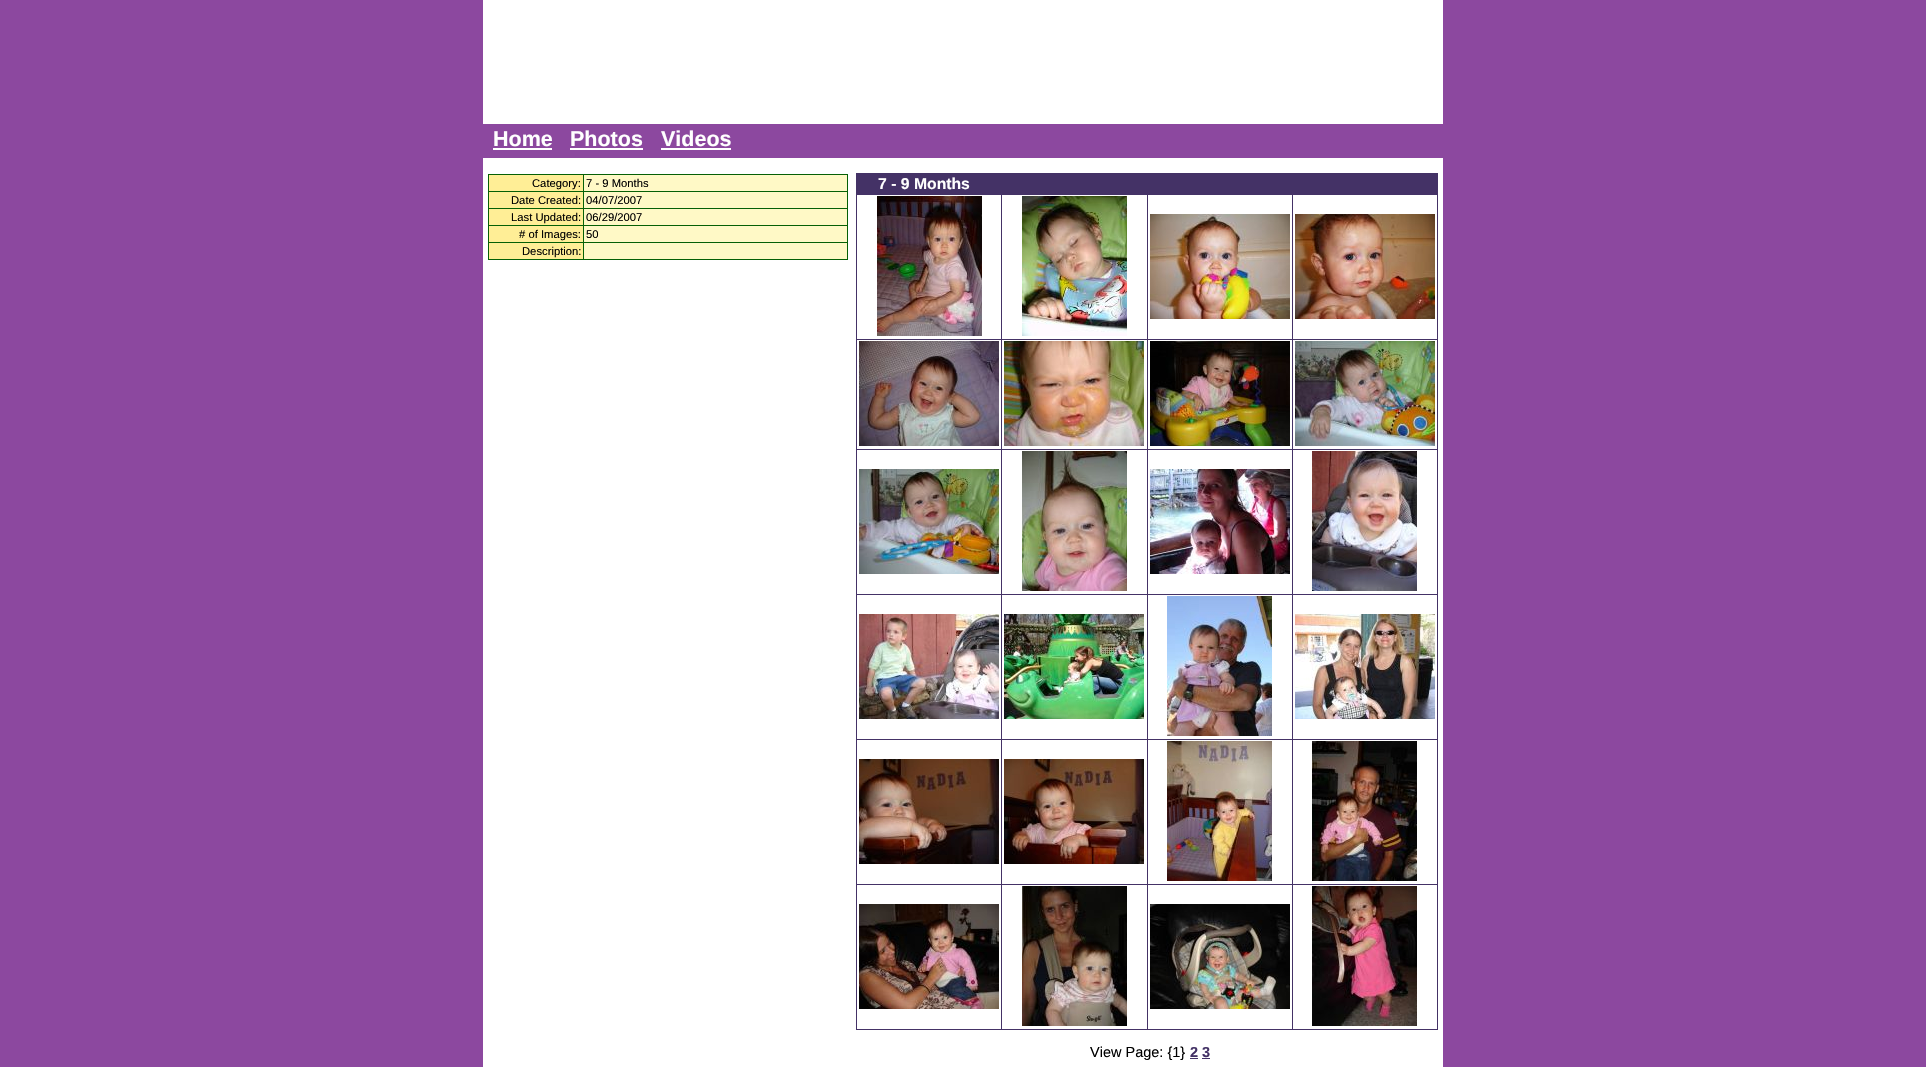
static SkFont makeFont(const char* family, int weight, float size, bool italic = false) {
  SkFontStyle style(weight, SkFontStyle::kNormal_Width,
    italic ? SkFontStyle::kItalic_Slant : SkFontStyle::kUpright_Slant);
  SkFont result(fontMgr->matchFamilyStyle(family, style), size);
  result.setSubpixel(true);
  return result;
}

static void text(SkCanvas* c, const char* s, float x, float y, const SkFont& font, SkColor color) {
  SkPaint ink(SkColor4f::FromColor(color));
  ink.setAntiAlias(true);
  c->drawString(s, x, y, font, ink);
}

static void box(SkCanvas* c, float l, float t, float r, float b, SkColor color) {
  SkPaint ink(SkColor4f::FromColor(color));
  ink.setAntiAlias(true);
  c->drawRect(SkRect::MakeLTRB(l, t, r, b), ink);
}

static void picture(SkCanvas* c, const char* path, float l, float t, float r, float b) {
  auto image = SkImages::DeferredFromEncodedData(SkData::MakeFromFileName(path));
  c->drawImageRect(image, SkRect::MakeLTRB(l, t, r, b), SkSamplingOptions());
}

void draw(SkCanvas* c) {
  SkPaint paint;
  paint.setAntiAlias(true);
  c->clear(0xff8c489f);
  box(c, 483, 0, 1443, 124, 0xffffffff);
  SkFont face1 = makeFont("Liberation Sans", 700, 21.5f);
  text(c, "Home", 493, 146, face1, 0xffffffff);
  box(c, 493, 148, 552, 150, 0xffffffff);
  text(c, "Photos", 570, 146, face1, 0xffffffff);
  box(c, 570, 148, 643, 150, 0xffffffff);
  text(c, "Videos", 661, 146, face1, 0xffffffff);
  box(c, 661, 148, 731, 150, 0xffffffff);
  box(c, 483, 158, 1443, 1067, 0xffffffff);
  box(c, 488, 174, 848, 260, 0xff066006);
  box(c, 489, 175, 583, 191, 0xffffee96);
  SkFont face2 = makeFont("Liberation Sans", 400, 11.25f);
  text(c, "Category:", 532, 187, face2, 0xff000000);
  box(c, 584, 175, 847, 191, 0xfffff9c6);
  text(c, "7 - 9 Months", 586, 187, face2, 0xff000000);
  box(c, 489, 192, 583, 208, 0xffffee96);
  text(c, "Date Created:", 511, 204, face2, 0xff000000);
  box(c, 584, 192, 847, 208, 0xfffff9c6);
  text(c, "04/07/2007", 586, 204, face2, 0xff000000);
  box(c, 489, 209, 583, 225, 0xffffee96);
  text(c, "Last Updated:", 511, 221, face2, 0xff000000);
  box(c, 584, 209, 847, 225, 0xfffff9c6);
  text(c, "06/29/2007", 586, 221, face2, 0xff000000);
  box(c, 489, 226, 583, 242, 0xffffee96);
  text(c, "# of Images:", 519, 238, face2, 0xff000000);
  box(c, 584, 226, 847, 242, 0xfffff9c6);
  text(c, "50", 586, 238, face2, 0xff000000);
  box(c, 489, 243, 583, 259, 0xffffee96);
  text(c, "Description:", 522, 255, face2, 0xff000000);
  box(c, 584, 243, 847, 259, 0xfffff9c6);
  box(c, 856, 173, 1438, 1030, 0xff443266);
  SkFont face3 = makeFont("Liberation Sans", 700, 15.75f);
  text(c, "7 - 9 Months", 878, 189, face3, 0xffffffff);
  box(c, 857, 195, 1001, 339, 0xffffffff);
  picture(c, "img_01.png", 877, 196, 982, 336);
  box(c, 1002, 195, 1147, 339, 0xffffffff);
  picture(c, "img_02.png", 1022, 196, 1127, 336);
  box(c, 1148, 195, 1292, 339, 0xffffffff);
  picture(c, "img_03.png", 1150, 214, 1290, 319);
  box(c, 1293, 195, 1437, 339, 0xffffffff);
  picture(c, "img_04.png", 1295, 214, 1435, 319);
  box(c, 857, 340, 1001, 449, 0xffffffff);
  picture(c, "img_05.png", 859, 341, 999, 446);
  box(c, 1002, 340, 1147, 449, 0xffffffff);
  picture(c, "img_06.png", 1004, 341, 1144, 446);
  box(c, 1148, 340, 1292, 449, 0xffffffff);
  picture(c, "img_07.png", 1150, 341, 1290, 446);
  box(c, 1293, 340, 1437, 449, 0xffffffff);
  picture(c, "img_08.png", 1295, 341, 1435, 446);
  box(c, 857, 450, 1001, 594, 0xffffffff);
  picture(c, "img_09.png", 859, 469, 999, 574);
  box(c, 1002, 450, 1147, 594, 0xffffffff);
  picture(c, "img_10.png", 1022, 451, 1127, 591);
  box(c, 1148, 450, 1292, 594, 0xffffffff);
  picture(c, "img_11.png", 1150, 469, 1290, 574);
  box(c, 1293, 450, 1437, 594, 0xffffffff);
  picture(c, "img_12.png", 1312, 451, 1417, 591);
  box(c, 857, 595, 1001, 739, 0xffffffff);
  picture(c, "img_13.png", 859, 614, 999, 719);
  box(c, 1002, 595, 1147, 739, 0xffffffff);
  picture(c, "img_14.png", 1004, 614, 1144, 719);
  box(c, 1148, 595, 1292, 739, 0xffffffff);
  picture(c, "img_15.png", 1167, 596, 1272, 736);
  box(c, 1293, 595, 1437, 739, 0xffffffff);
  picture(c, "img_16.png", 1295, 614, 1435, 719);
  box(c, 857, 740, 1001, 884, 0xffffffff);
  picture(c, "img_17.png", 859, 759, 999, 864);
  box(c, 1002, 740, 1147, 884, 0xffffffff);
  picture(c, "img_18.png", 1004, 759, 1144, 864);
  box(c, 1148, 740, 1292, 884, 0xffffffff);
  picture(c, "img_19.png", 1167, 741, 1272, 881);
  box(c, 1293, 740, 1437, 884, 0xffffffff);
  picture(c, "img_20.png", 1312, 741, 1417, 881);
  box(c, 857, 885, 1001, 1029, 0xffffffff);
  picture(c, "img_21.png", 859, 904, 999, 1009);
  box(c, 1002, 885, 1147, 1029, 0xffffffff);
  picture(c, "img_22.png", 1022, 886, 1127, 1026);
  box(c, 1148, 885, 1292, 1029, 0xffffffff);
  picture(c, "img_23.png", 1150, 904, 1290, 1009);
  box(c, 1293, 885, 1437, 1029, 0xffffffff);
  picture(c, "img_24.png", 1312, 886, 1417, 1026);
  SkFont face4 = makeFont("Liberation Sans", 400, 14.5f);
  text(c, "View Page: {1}", 1090, 1057, face4, 0xff000000);
  SkFont face5 = makeFont("Liberation Sans", 700, 14.5f);
  text(c, "2 3", 1190, 1057, face5, 0xff443266);
  box(c, 1190, 1058, 1198, 1059, 0xff443266);
  box(c, 1202, 1058, 1210, 1059, 0xff443266);
}
